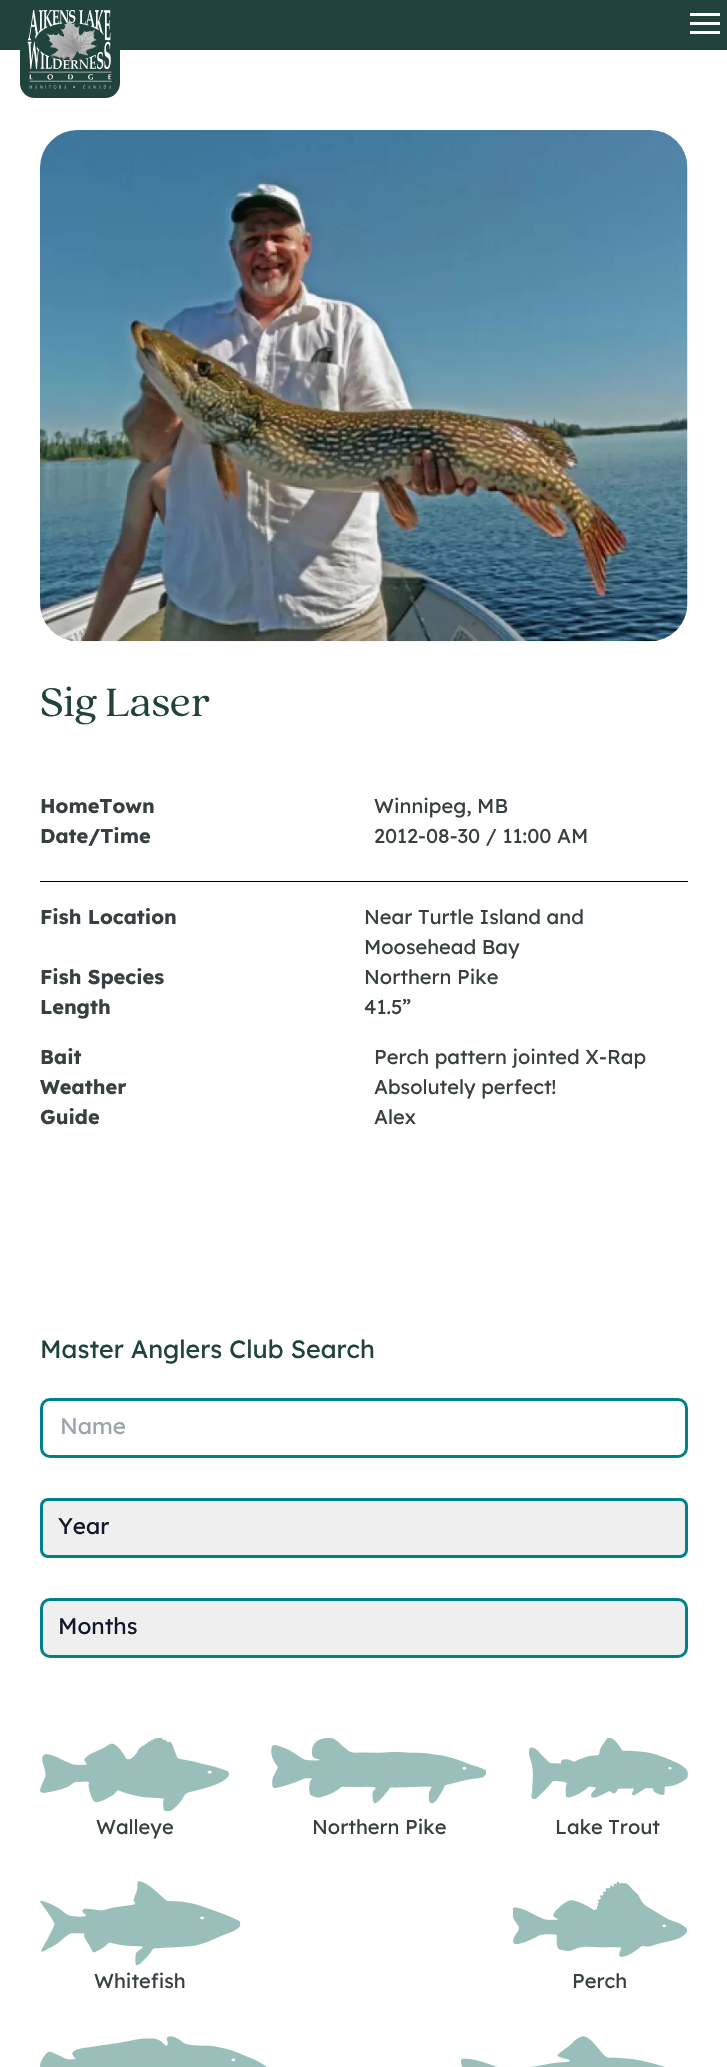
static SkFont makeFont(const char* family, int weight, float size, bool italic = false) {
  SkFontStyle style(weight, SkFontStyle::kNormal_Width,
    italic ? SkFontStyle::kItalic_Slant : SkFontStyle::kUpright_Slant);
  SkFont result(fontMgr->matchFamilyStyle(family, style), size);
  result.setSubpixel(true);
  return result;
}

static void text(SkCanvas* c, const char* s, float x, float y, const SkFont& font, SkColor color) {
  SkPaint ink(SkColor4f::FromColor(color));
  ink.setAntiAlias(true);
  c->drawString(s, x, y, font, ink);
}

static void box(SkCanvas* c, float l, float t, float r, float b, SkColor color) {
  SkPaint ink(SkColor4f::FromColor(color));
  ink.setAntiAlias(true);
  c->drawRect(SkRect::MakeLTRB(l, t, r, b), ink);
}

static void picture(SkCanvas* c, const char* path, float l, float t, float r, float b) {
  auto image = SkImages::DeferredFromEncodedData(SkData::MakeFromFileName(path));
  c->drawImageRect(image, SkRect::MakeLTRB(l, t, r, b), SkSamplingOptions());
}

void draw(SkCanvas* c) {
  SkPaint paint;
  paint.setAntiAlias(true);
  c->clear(0xffffffff);
  box(c, 0, 0, 727, 50, 0xff20433e);
  paint.setColor(0xff20433e);
  c->drawPath(SkPathBuilder().moveTo(22.5f, 2.5f).lineTo(117.5f, 2.5f).lineTo(117.5f, 83).cubicTo(117.5f, 90, 112, 95.5f, 105, 95.5f).lineTo(35, 95.5f).cubicTo(28, 95.5f, 22.5f, 90, 22.5f, 83).close().detach(), paint);
  paint.setStyle(SkPaint::kStroke_Style);
  paint.setStrokeWidth(5);
  c->drawPath(SkPathBuilder().moveTo(22.5f, 2.5f).lineTo(117.5f, 2.5f).lineTo(117.5f, 83).cubicTo(117.5f, 90, 112, 95.5f, 105, 95.5f).lineTo(35, 95.5f).cubicTo(28, 95.5f, 22.5f, 90, 22.5f, 83).close().detach(), paint);
  picture(c, "img_01.png", 27, 10, 112, 89);
  picture(c, "img_02.png", 690, 13, 720, 34);
  picture(c, "img_03.png", 40, 130, 688, 642);
  SkFont face1 = makeFont("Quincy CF", 400, 44);
  text(c, "Sig Laser", 40, 716, face1, 0xff20433e);
  SkFont face2 = makeFont("Lexend Deca", 700, 20);
  text(c, "HomeTown", 40, 813, face2, 0xff373f41);
  SkFont face3 = makeFont("Lexend Deca", 400, 20);
  text(c, "Winnipeg, MB", 374, 813, face3, 0xff373f41);
  text(c, "Date/Time", 40, 843, face2, 0xff373f41);
  text(c, "2012-08-30 / 11:00 AM", 374, 843, face3, 0xff373f41);
  box(c, 40, 881, 688, 882, 0xff000000);
  text(c, "Fish Location", 40, 924, face2, 0xff373f41);
  text(c, "Near Turtle Island and", 364, 924, face3, 0xff373f41);
  text(c, "Moosehead Bay", 364, 954, face3, 0xff373f41);
  text(c, "Fish Species", 40, 984, face2, 0xff373f41);
  text(c, "Northern Pike", 364, 984, face3, 0xff373f41);
  text(c, "Length", 40, 1014, face2, 0xff373f41);
  text(c, "41.5”", 364, 1014, face3, 0xff373f41);
  text(c, "Bait", 40, 1064, face2, 0xff373f41);
  text(c, "Perch pattern jointed X-Rap", 374, 1064, face3, 0xff373f41);
  text(c, "Weather", 40, 1094, face2, 0xff373f41);
  text(c, "Absolutely perfect!", 374, 1094, face3, 0xff373f41);
  text(c, "Guide", 40, 1124, face2, 0xff373f41);
  text(c, "Alex", 374, 1124, face3, 0xff373f41);
  SkFont face4 = makeFont("Lexend Deca", 400, 25);
  text(c, "Master Anglers Club Search", 40, 1358, face4, 0xff20433e);
  paint.setStrokeWidth(3);
  paint.setColor(0xff008089);
  c->drawRoundRect(SkRect::MakeLTRB(41.5f, 1399.5f, 686.5f, 1456.5f), 8.5f, 8.5f, paint);
  SkFont face5 = makeFont("Lexend Deca", 400, 22.5f);
  text(c, "Name", 60, 1434, face5, 0xff9ca3af);
  paint.setStyle(SkPaint::kFill_Style);
  paint.setColor(0xffefefef);
  c->drawRoundRect(SkRect::MakeLTRB(41.5f, 1499.5f, 686.5f, 1556.5f), 6.5f, 6.5f, paint);
  paint.setStyle(SkPaint::kStroke_Style);
  paint.setColor(0xff008089);
  c->drawRoundRect(SkRect::MakeLTRB(41.5f, 1499.5f, 686.5f, 1556.5f), 6.5f, 6.5f, paint);
  text(c, "Year", 58, 1534, face5, 0xff111827);
  paint.setStyle(SkPaint::kFill_Style);
  paint.setColor(0xffefefef);
  c->drawRoundRect(SkRect::MakeLTRB(41.5f, 1599.5f, 686.5f, 1656.5f), 8.5f, 8.5f, paint);
  paint.setStyle(SkPaint::kStroke_Style);
  paint.setColor(0xff008089);
  c->drawRoundRect(SkRect::MakeLTRB(41.5f, 1599.5f, 686.5f, 1656.5f), 8.5f, 8.5f, paint);
  text(c, "Months", 58, 1634, face5, 0xff111827);
  picture(c, "img_04.png", 40, 1738, 229, 1811);
  text(c, "Walleye", 96, 1834, face3, 0xff373f41);
  picture(c, "img_05.png", 271, 1738, 486, 1803);
  text(c, "Northern Pike", 312, 1834, face3, 0xff373f41);
  picture(c, "img_06.png", 529, 1738, 688, 1799);
  text(c, "Lake Trout", 555, 1834, face3, 0xff373f41);
  picture(c, "img_07.png", 40, 1881, 240, 1965);
  text(c, "Whitefish", 94, 1988, face3, 0xff373f41);
  picture(c, "img_08.png", 513, 1881, 687, 1957);
  text(c, "Perch", 572, 1988, face3, 0xff373f41);
  picture(c, "img_09.png", 40, 2036, 267, 2067);
  picture(c, "img_10.png", 461, 2036, 665, 2067);
}
